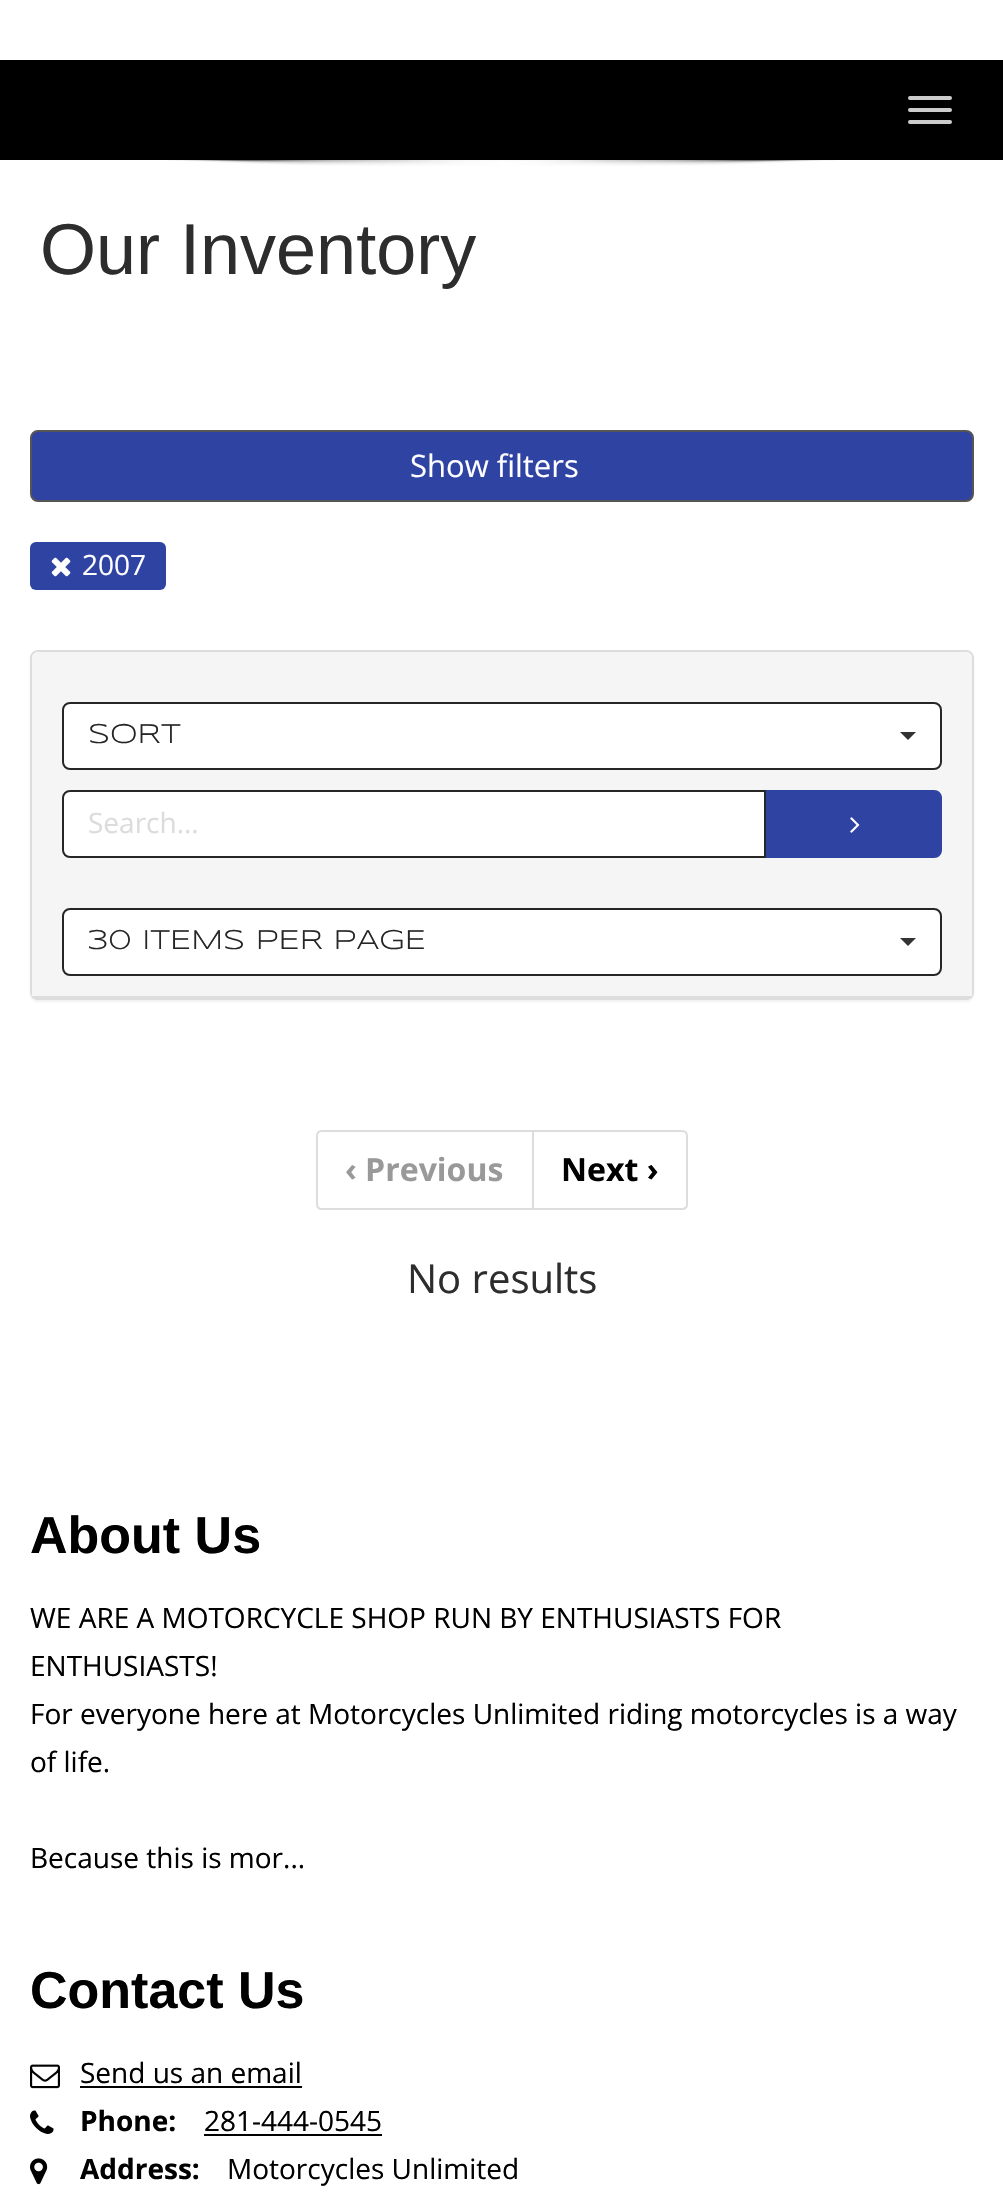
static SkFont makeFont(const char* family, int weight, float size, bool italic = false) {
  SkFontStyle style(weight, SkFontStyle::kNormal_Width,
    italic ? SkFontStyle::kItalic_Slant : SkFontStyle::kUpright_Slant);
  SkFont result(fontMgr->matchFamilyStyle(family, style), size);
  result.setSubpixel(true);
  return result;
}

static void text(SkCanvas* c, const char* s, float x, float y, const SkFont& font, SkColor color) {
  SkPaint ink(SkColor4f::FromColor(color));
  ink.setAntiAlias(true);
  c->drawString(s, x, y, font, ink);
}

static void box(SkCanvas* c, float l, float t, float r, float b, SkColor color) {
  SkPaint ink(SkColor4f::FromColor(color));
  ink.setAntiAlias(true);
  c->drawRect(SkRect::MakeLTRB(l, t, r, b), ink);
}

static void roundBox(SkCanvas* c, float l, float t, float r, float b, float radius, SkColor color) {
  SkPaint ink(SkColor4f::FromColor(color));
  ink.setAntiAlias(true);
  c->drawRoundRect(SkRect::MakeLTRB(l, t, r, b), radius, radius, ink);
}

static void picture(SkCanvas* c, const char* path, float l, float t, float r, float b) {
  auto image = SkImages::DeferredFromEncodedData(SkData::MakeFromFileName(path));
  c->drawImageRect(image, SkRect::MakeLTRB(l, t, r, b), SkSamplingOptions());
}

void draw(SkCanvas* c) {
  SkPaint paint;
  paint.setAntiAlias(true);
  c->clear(0xffffffff);
  box(c, 0, 60, 1003, 160, 0xff000000);
  roundBox(c, 908, 96, 952, 100, 2, 0xffcccccc);
  roundBox(c, 908, 108, 952, 112, 2, 0xffcccccc);
  roundBox(c, 908, 120, 952, 124, 2, 0xffcccccc);
  picture(c, "img_01.png", 167, 160, 837, 166);
  SkFont face1 = makeFont("Liberation Sans", 400, 72);
  text(c, "Our Inventory", 40, 274, face1, 0xff2d2d2d);
  paint.setColor(0xff2f43a3);
  c->drawRoundRect(SkRect::MakeLTRB(31, 431, 973, 501), 7, 7, paint);
  paint.setStyle(SkPaint::kStroke_Style);
  paint.setStrokeWidth(2);
  paint.setColor(0xff555555);
  c->drawRoundRect(SkRect::MakeLTRB(31, 431, 973, 501), 7, 7, paint);
  SkFont face2 = makeFont("Open Sans", 400, 31);
  text(c, "Show filters", 410, 477, face2, 0xffffffff);
  roundBox(c, 30, 542, 166, 590, 6, 0xff2f43a3);
  picture(c, "img_02.png", 51, 557, 71, 577);
  SkFont face3 = makeFont("Open Sans", 400, 28);
  text(c, "2007", 82, 575, face3, 0xffffffff);
  paint.setStyle(SkPaint::kFill_Style);
  paint.setColor(0x0d000000);
  paint.setMaskFilter(SkMaskFilter::MakeBlur(kNormal_SkBlurStyle, 1));
  c->drawRoundRect(SkRect::MakeLTRB(30, 652, 974, 1002), 8, 8, paint);
  paint.setMaskFilter(nullptr);
  paint.setStyle(SkPaint::kStroke_Style);
  paint.setColor(0xffdddddd);
  c->drawRoundRect(SkRect::MakeLTRB(31, 651, 973, 999), 7, 7, paint);
  paint.setStyle(SkPaint::kFill_Style);
  paint.setColor(0xfff5f5f5);
  c->drawPath(SkPathBuilder().moveTo(38, 652).lineTo(966, 652).cubicTo(969.5f, 652, 972, 654.5f, 972, 658).lineTo(972, 998).lineTo(32, 998).lineTo(32, 658).cubicTo(32, 654.5f, 34.5f, 652, 38, 652).close().detach(), paint);
  box(c, 32, 996, 972, 998, 0xffdddddd);
  paint.setColor(0xffffffff);
  c->drawRoundRect(SkRect::MakeLTRB(63, 703, 941, 769), 7, 7, paint);
  paint.setStyle(SkPaint::kStroke_Style);
  paint.setColor(0xff262626);
  c->drawRoundRect(SkRect::MakeLTRB(63, 703, 941, 769), 7, 7, paint);
  SkFont face4 = makeFont("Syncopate", 400, 28);
  text(c, "SORT", 88, 743, face4, 0xff262626);
  paint.setStyle(SkPaint::kFill_Style);
  paint.setColor(0xff333333);
  c->drawPath(SkPathBuilder().moveTo(900, 732).lineTo(916, 732).lineTo(908, 740).close().detach(), paint);
  paint.setColor(0xffffffff);
  c->drawPath(SkPathBuilder().moveTo(70, 791).lineTo(765, 791).lineTo(765, 857).lineTo(70, 857).cubicTo(66, 857, 63, 854, 63, 850).lineTo(63, 798).cubicTo(63, 794, 66, 791, 70, 791).close().detach(), paint);
  paint.setStyle(SkPaint::kStroke_Style);
  paint.setColor(0xff262626);
  c->drawPath(SkPathBuilder().moveTo(70, 791).lineTo(765, 791).lineTo(765, 857).lineTo(70, 857).cubicTo(66, 857, 63, 854, 63, 850).lineTo(63, 798).cubicTo(63, 794, 66, 791, 70, 791).close().detach(), paint);
  text(c, "Search...", 88, 833, face3, 0xffdcdcdc);
  paint.setStyle(SkPaint::kFill_Style);
  paint.setColor(0xff2f43a3);
  c->drawPath(SkPathBuilder().moveTo(766, 790).lineTo(934, 790).cubicTo(938.5f, 790, 942, 793.5f, 942, 798).lineTo(942, 850).cubicTo(942, 854.5f, 938.5f, 858, 934, 858).lineTo(766, 858).close().detach(), paint);
  picture(c, "img_03.png", 850, 817, 860, 833);
  paint.setColor(0xffffffff);
  c->drawRoundRect(SkRect::MakeLTRB(63, 909, 941, 975), 7, 7, paint);
  paint.setStyle(SkPaint::kStroke_Style);
  paint.setColor(0xff262626);
  c->drawRoundRect(SkRect::MakeLTRB(63, 909, 941, 975), 7, 7, paint);
  text(c, "30 ITEMS PER PAGE", 88, 949, face4, 0xff262626);
  paint.setStyle(SkPaint::kFill_Style);
  paint.setColor(0xff333333);
  c->drawPath(SkPathBuilder().moveTo(900, 938).lineTo(916, 938).lineTo(908, 946).close().detach(), paint);
  paint.setStyle(SkPaint::kStroke_Style);
  paint.setColor(0xffdddddd);
  c->drawPath(SkPathBuilder().moveTo(322, 1131).lineTo(533, 1131).lineTo(533, 1209).lineTo(322, 1209).cubicTo(319, 1209, 317, 1207, 317, 1204).lineTo(317, 1136).cubicTo(317, 1133, 319, 1131, 322, 1131).close().detach(), paint);
  SkFont face5 = makeFont("Open Sans", 700, 32);
  text(c, "‹ Previous", 345, 1181, face5, 0xff999999);
  paint.setStyle(SkPaint::kFill_Style);
  paint.setColor(0xffffffff);
  c->drawPath(SkPathBuilder().moveTo(533, 1131).lineTo(682, 1131).cubicTo(685, 1131, 687, 1133, 687, 1136).lineTo(687, 1204).cubicTo(687, 1207, 685, 1209, 682, 1209).lineTo(533, 1209).close().detach(), paint);
  paint.setStyle(SkPaint::kStroke_Style);
  paint.setColor(0xffdddddd);
  c->drawPath(SkPathBuilder().moveTo(533, 1131).lineTo(682, 1131).cubicTo(685, 1131, 687, 1133, 687, 1136).lineTo(687, 1204).cubicTo(687, 1207, 685, 1209, 682, 1209).lineTo(533, 1209).close().detach(), paint);
  text(c, "Next ›", 561, 1181, face5, 0xff000000);
  SkFont face6 = makeFont("Open Sans", 400, 40);
  text(c, "No results", 407, 1293, face6, 0xff2d2d2d);
  SkFont face7 = makeFont("Liberation Sans", 700, 52);
  text(c, "About Us", 30, 1553, face7, 0xff000000);
  text(c, "WE ARE A MOTORCYCLE SHOP RUN BY ENTHUSIASTS FOR", 30, 1628, face3, 0xff000000);
  text(c, "ENTHUSIASTS!", 30, 1676, face3, 0xff000000);
  text(c, "For everyone here at Motorcycles Unlimited riding motorcycles is a way", 30, 1724, face3, 0xff000000);
  text(c, "of life.", 30, 1772, face3, 0xff000000);
  text(c, "Because this is mor...", 30, 1868, face3, 0xff000000);
  text(c, "Contact Us", 30, 2008, face7, 0xff000000);
  picture(c, "img_04.png", 30, 2064, 60, 2089);
  text(c, "Send us an email", 80, 2083, face3, 0xff000000);
  box(c, 80, 2086, 302, 2088, 0xff000000);
  picture(c, "img_05.png", 30, 2110, 54, 2134);
  SkFont face8 = makeFont("Open Sans", 700, 28);
  text(c, "Phone:", 80, 2131, face8, 0xff000000);
  text(c, "281-444-0545", 204, 2131, face3, 0xff000000);
  box(c, 204, 2134, 382, 2136, 0xff000000);
  picture(c, "img_06.png", 30, 2158, 48, 2185);
  text(c, "Address:", 80, 2179, face8, 0xff000000);
  text(c, "Motorcycles Unlimited", 227, 2179, face3, 0xff000000);
}
